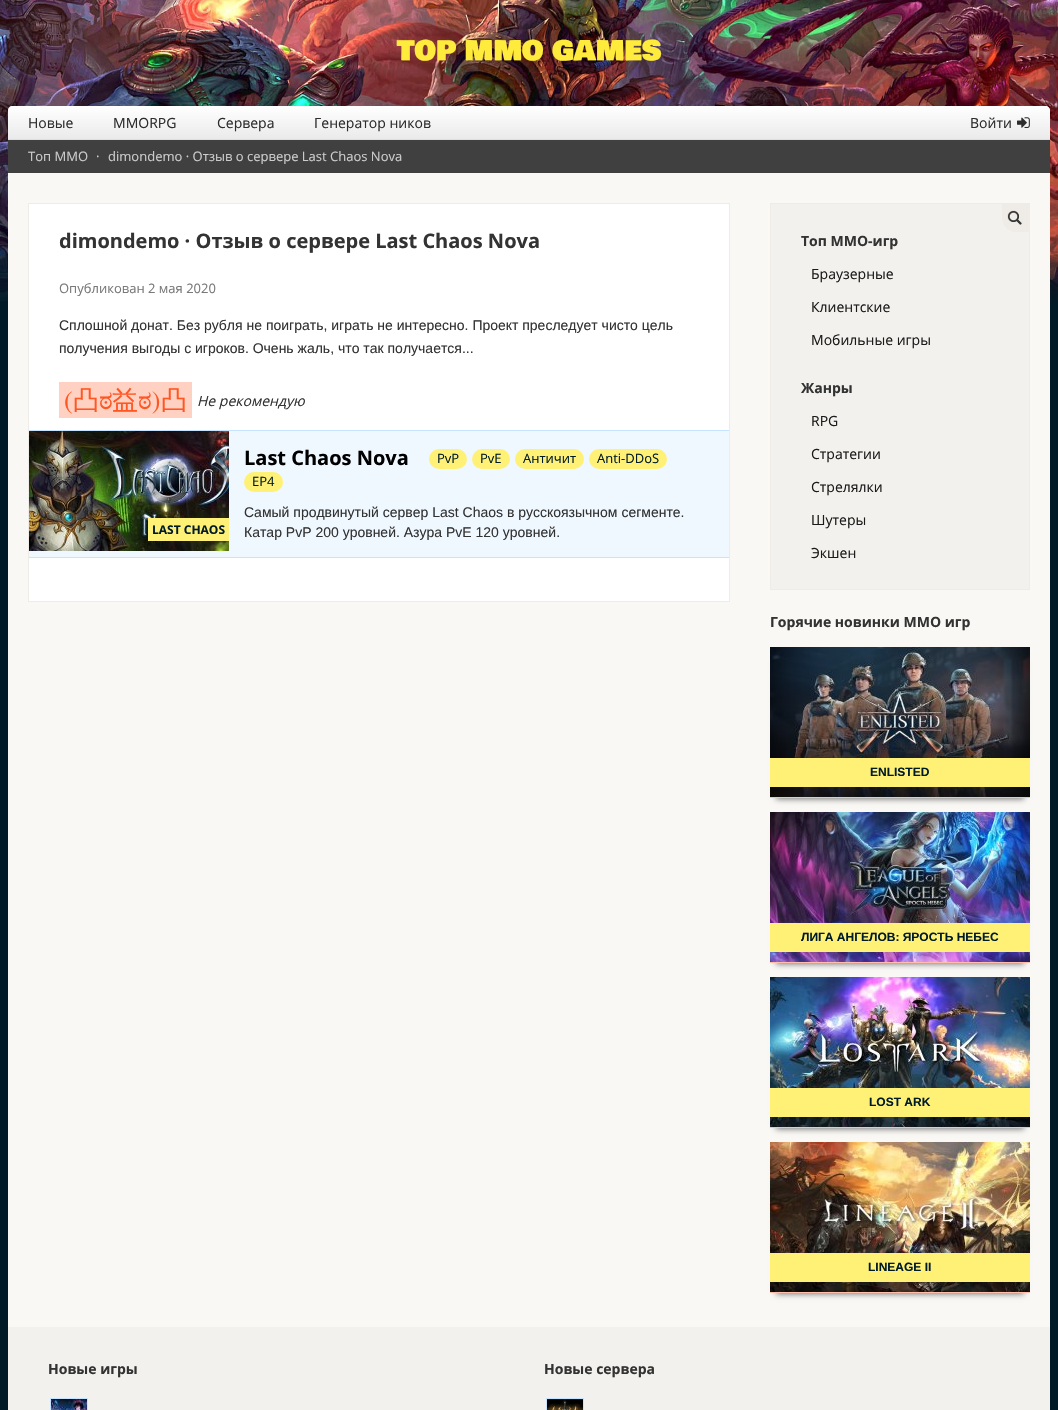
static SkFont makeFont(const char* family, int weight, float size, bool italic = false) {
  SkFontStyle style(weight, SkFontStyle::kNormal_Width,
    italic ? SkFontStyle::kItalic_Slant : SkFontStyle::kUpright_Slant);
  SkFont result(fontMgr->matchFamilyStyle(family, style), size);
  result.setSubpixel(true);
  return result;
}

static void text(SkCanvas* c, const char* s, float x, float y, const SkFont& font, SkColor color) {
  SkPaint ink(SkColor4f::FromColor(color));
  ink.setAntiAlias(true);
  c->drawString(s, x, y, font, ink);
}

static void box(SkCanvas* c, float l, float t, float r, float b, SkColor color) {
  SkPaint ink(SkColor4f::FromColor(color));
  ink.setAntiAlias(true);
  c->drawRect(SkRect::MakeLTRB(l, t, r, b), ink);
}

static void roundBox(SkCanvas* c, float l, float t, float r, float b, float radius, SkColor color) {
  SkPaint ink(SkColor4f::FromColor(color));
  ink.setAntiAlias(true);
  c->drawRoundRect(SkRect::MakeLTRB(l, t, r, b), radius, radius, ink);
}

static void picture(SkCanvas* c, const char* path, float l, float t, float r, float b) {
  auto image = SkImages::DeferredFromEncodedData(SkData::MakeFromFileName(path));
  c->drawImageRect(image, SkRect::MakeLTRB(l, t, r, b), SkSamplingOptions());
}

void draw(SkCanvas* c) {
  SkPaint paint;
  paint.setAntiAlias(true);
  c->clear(0xff001b27);
  picture(c, "img_01.png", 0, 0, 1058, 301);
  SkFont face1 = makeFont("Bowlby One SC", 400, 27);
  text(c, "TOP MMO GAMES", 397, 60, face1, 0xffffeb3b);
  paint.setColor(0xfff9f8f5);
  c->drawPath(SkPathBuilder().moveTo(13, 106).lineTo(1045, 106).cubicTo(1048, 106, 1050, 108, 1050, 111).lineTo(1050, 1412).cubicTo(1050, 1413.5f, 1048.5f, 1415, 1047, 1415).lineTo(11, 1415).cubicTo(9.5f, 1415, 8, 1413.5f, 8, 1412).lineTo(8, 111).cubicTo(8, 108, 10, 106, 13, 106).close().detach(), paint);
  {
    const SkColor colors[] = {0xffffffff, 0xffeaeaea};
    const float stops[] = {0, 1};
    const SkPoint ends[] = {{529, 106}, {529, 139}};
    paint.setShader(SkGradientShader::MakeLinear(ends, colors, stops, 2, SkTileMode::kClamp));
    paint.setAlpha(255);
  }
  c->drawPath(SkPathBuilder().moveTo(13, 106).lineTo(1045, 106).cubicTo(1048, 106, 1050, 108, 1050, 111).lineTo(1050, 139).lineTo(8, 139).lineTo(8, 111).cubicTo(8, 108, 10, 106, 13, 106).close().detach(), paint);
  box(c, 8, 139, 1050, 140, 0xffdedede);
  SkFont face2 = makeFont("Open Sans", 400, 14);
  text(c, "Новые", 28, 128, face2, 0xff2d2d2d);
  text(c, "MMORPG", 113, 128, face2, 0xff2d2d2d);
  text(c, "Сервера", 217, 128, face2, 0xff2d2d2d);
  text(c, "Генератор ников", 314, 128, face2, 0xff2d2d2d);
  text(c, "Войти", 970, 128, face2, 0xff2d2d2d);
  picture(c, "img_02.png", 1017, 117, 1030, 128);
  box(c, 8, 140, 1050, 173, 0xff404040);
  SkFont face3 = makeFont("Open Sans", 400, 13);
  text(c, "Топ ММО", 28, 161, face3, 0xffcccccc);
  text(c, "·", 96, 161, face3, 0xffcccccc);
  text(c, "dimondemo · Отзыв о сервере Last Chaos Nova", 108, 161, face3, 0xffcccccc);
  paint.setShader(nullptr);
  paint.setColor(0xffffffff);
  c->drawRect(SkRect::MakeLTRB(28.5f, 203.5f, 729.5f, 601.5f), paint);
  paint.setStyle(SkPaint::kStroke_Style);
  paint.setStrokeWidth(1);
  paint.setColor(0xffefece8);
  c->drawRect(SkRect::MakeLTRB(28.5f, 203.5f, 729.5f, 601.5f), paint);
  SkFont face4 = makeFont("Open Sans", 700, 20);
  text(c, "dimondemo · Отзыв о сервере Last Chaos Nova", 59, 248, face4, 0xff333333);
  text(c, "Опубликован 2 мая 2020", 59, 293, face3, 0xff797979);
  SkFont face5 = makeFont("Liberation Sans", 400, 14);
  text(c, "Сплошной донат. Без рубля не поиграть, играть не интересно. Проект преследует чисто цель", 59, 330, face5, 0xff333333);
  text(c, "получения выгоды с игроков. Очень жаль, что так получается...", 59, 353, face5, 0xff333333);
  box(c, 59, 382, 192, 418, 0xffffd1c2);
  SkFont face6 = makeFont("FreeSerif", 400, 26);
  text(c, "(", 64, 409, face6, 0xffff5722);
  SkFont face7 = makeFont("WenQuanYi Zen Hei", 500, 26);
  text(c, "凸", 73, 409, face7, 0xffff5722);
  text(c, "ಠ", 99, 409, face6, 0xffff5722);
  text(c, "益", 112, 409, face7, 0xffff5722);
  text(c, "ಠ)", 138, 409, face6, 0xffff5722);
  text(c, "凸", 161, 409, face7, 0xffff5722);
  SkFont face8 = makeFont("Open Sans", 400, 14, true);
  text(c, "Не рекомендую", 197, 406, face8, 0xff333333);
  box(c, 29, 431, 729, 557, 0xfff0f8ff);
  box(c, 29, 430, 729, 431, 0xffc6e4ff);
  box(c, 29, 557, 729, 558, 0xffc6e4ff);
  text(c, "Last Chaos Nova", 244, 465, face4, 0xff000000);
  roundBox(c, 429, 449, 467, 469, 10, 0xfffff176);
  text(c, "PvP", 437, 463, face3, 0xff001b27);
  roundBox(c, 472, 449, 510, 469, 10, 0xfffff176);
  text(c, "PvE", 480, 463, face3, 0xff001b27);
  roundBox(c, 515, 449, 584, 469, 10, 0xfffff176);
  text(c, "Античит", 523, 463, face3, 0xff001b27);
  roundBox(c, 589, 449, 667, 469, 10, 0xfffff176);
  text(c, "Anti-DDoS", 597, 463, face3, 0xff001b27);
  roundBox(c, 244, 472, 283, 492, 10, 0xfffff176);
  text(c, "EP4", 252, 486, face3, 0xff001b27);
  picture(c, "img_03.png", 29, 431, 229, 551);
  box(c, 148, 518, 229, 541, 0xfffff176);
  SkFont face9 = makeFont("Open Sans", 700, 12);
  text(c, "LAST CHAOS", 152, 534, face9, 0xff001b27);
  text(c, "Самый продвинутый сервер Last Chaos в русскоязычном сегменте.", 244, 517, face5, 0xff333333);
  text(c, "Катар PvP 200 уровней. Азура PvE 120 уровней.", 244, 537, face5, 0xff333333);
  paint.setStyle(SkPaint::kFill_Style);
  paint.setColor(0xfff3f1ed);
  c->drawRect(SkRect::MakeLTRB(770.5f, 203.5f, 1029.5f, 589.5f), paint);
  paint.setStyle(SkPaint::kStroke_Style);
  paint.setColor(0xffefece8);
  c->drawRect(SkRect::MakeLTRB(770.5f, 203.5f, 1029.5f, 589.5f), paint);
  paint.setStyle(SkPaint::kFill_Style);
  c->drawPath(SkPathBuilder().moveTo(1002, 203).lineTo(1030, 203).lineTo(1030, 232).lineTo(1016, 232).cubicTo(1008.5f, 232, 1002, 225.5f, 1002, 218).close().detach(), paint);
  picture(c, "img_04.png", 1007, 210, 1022, 225);
  SkFont face10 = makeFont("Open Sans", 700, 14);
  text(c, "Топ ММО-игр", 801, 246, face10, 0xff333333);
  text(c, "Браузерные", 811, 279, face2, 0xff1b1b1b);
  text(c, "Клиентские", 811, 312, face2, 0xff1b1b1b);
  text(c, "Мобильные игры", 811, 345, face2, 0xff1b1b1b);
  text(c, "Жанры", 801, 393, face10, 0xff333333);
  text(c, "RPG", 811, 426, face2, 0xff1b1b1b);
  text(c, "Стратегии", 811, 459, face2, 0xff1b1b1b);
  text(c, "Стрелялки", 811, 492, face2, 0xff1b1b1b);
  text(c, "Шутеры", 811, 525, face2, 0xff1b1b1b);
  text(c, "Экшен", 811, 558, face2, 0xff1b1b1b);
  text(c, "Горячие новинки ММО игр", 770, 627, face10, 0xff333333);
  paint.setColor(0xff777777);
  paint.setMaskFilter(SkMaskFilter::MakeBlur(kNormal_SkBlurStyle, 3));
  c->drawRect(SkRect::MakeLTRB(776, 661, 1024, 799), paint);
  paint.setMaskFilter(nullptr);
  box(c, 770, 797, 1030, 798, 0xffffbeaa);
  picture(c, "img_05.png", 770, 647, 1030, 797);
  box(c, 770, 758, 1030, 787, 0xfffff176);
  SkFont face11 = makeFont("Liberation Sans", 700, 12);
  text(c, "ENLISTED", 870, 776, face11, 0xff001b27);
  paint.setMaskFilter(SkMaskFilter::MakeBlur(kNormal_SkBlurStyle, 3));
  c->drawRect(SkRect::MakeLTRB(776, 826, 1024, 964), paint);
  paint.setMaskFilter(nullptr);
  box(c, 770, 962, 1030, 963, 0xffffbeaa);
  picture(c, "img_06.png", 770, 812, 1030, 962);
  box(c, 770, 923, 1030, 952, 0xfffff176);
  text(c, "ЛИГА АНГЕЛОВ: ЯРОСТЬ НЕБЕС", 801, 941, face11, 0xff001b27);
  paint.setMaskFilter(SkMaskFilter::MakeBlur(kNormal_SkBlurStyle, 3));
  c->drawRect(SkRect::MakeLTRB(776, 991, 1024, 1129), paint);
  paint.setMaskFilter(nullptr);
  box(c, 770, 1127, 1030, 1128, 0xffffbeaa);
  picture(c, "img_07.png", 770, 977, 1030, 1127);
  box(c, 770, 1088, 1030, 1117, 0xfffff176);
  text(c, "LOST ARK", 869, 1106, face11, 0xff001b27);
  paint.setMaskFilter(SkMaskFilter::MakeBlur(kNormal_SkBlurStyle, 3));
  c->drawRect(SkRect::MakeLTRB(776, 1156, 1024, 1294), paint);
  paint.setMaskFilter(nullptr);
  box(c, 770, 1292, 1030, 1293, 0xffffbeaa);
  picture(c, "img_08.png", 770, 1142, 1030, 1292);
  box(c, 770, 1253, 1030, 1282, 0xfffff176);
  text(c, "LINEAGE II", 868, 1271, face11, 0xff001b27);
  box(c, 8, 1327, 1050, 1410, 0xfff3f1ed);
  text(c, "Новые игры", 48, 1374, face10, 0xff333333);
  paint.setStyle(SkPaint::kStroke_Style);
  paint.setColor(0xffc6e4ff);
  c->drawRect(SkRect::MakeLTRB(50.5f, 1398.5f, 87.5f, 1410.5f), paint);
  picture(c, "img_09.png", 51, 1399, 87, 1410);
  text(c, "Новые сервера", 544, 1374, face10, 0xff333333);
  c->drawRect(SkRect::MakeLTRB(546.5f, 1398.5f, 583.5f, 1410.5f), paint);
  picture(c, "img_10.png", 547, 1399, 583, 1410);
}
